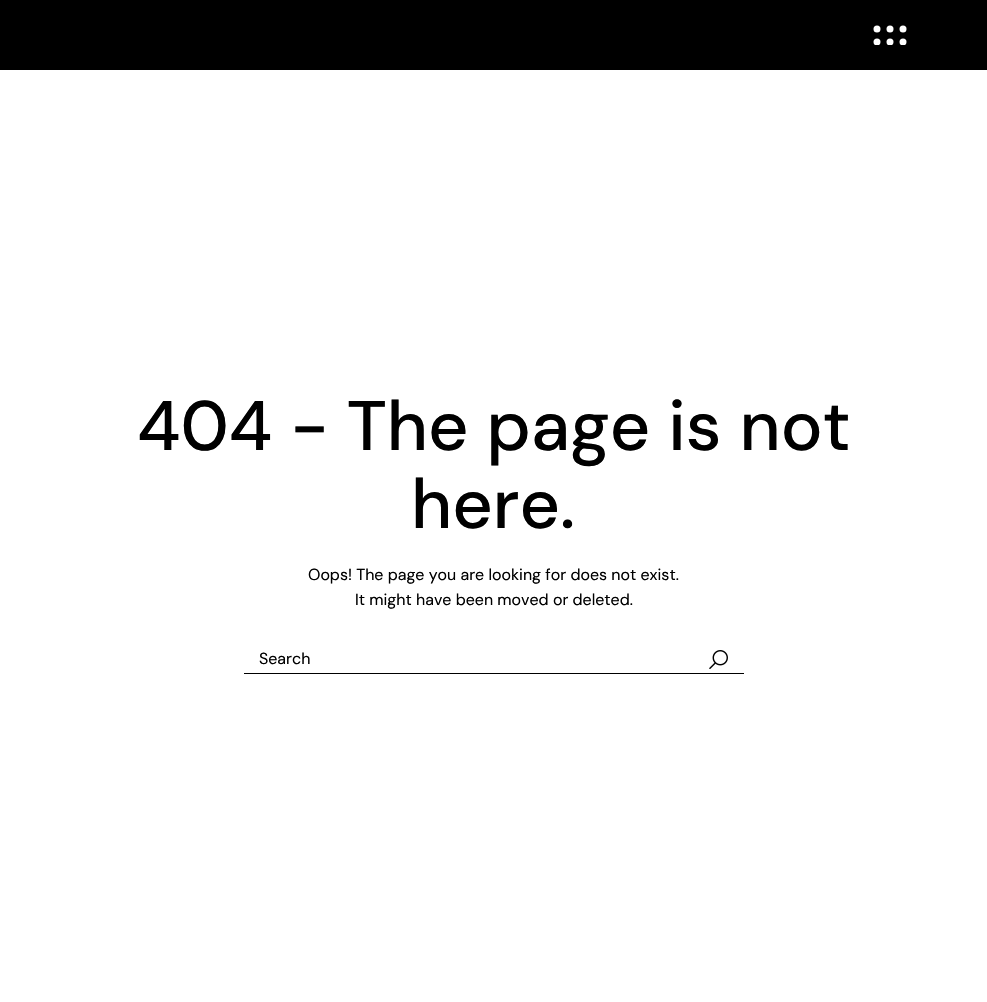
static SkFont makeFont(const char* family, int weight, float size, bool italic = false) {
  SkFontStyle style(weight, SkFontStyle::kNormal_Width,
    italic ? SkFontStyle::kItalic_Slant : SkFontStyle::kUpright_Slant);
  SkFont result(fontMgr->matchFamilyStyle(family, style), size);
  result.setSubpixel(true);
  return result;
}

static void text(SkCanvas* c, const char* s, float x, float y, const SkFont& font, SkColor color) {
  SkPaint ink(SkColor4f::FromColor(color));
  ink.setAntiAlias(true);
  c->drawString(s, x, y, font, ink);
}

static void box(SkCanvas* c, float l, float t, float r, float b, SkColor color) {
  SkPaint ink(SkColor4f::FromColor(color));
  ink.setAntiAlias(true);
  c->drawRect(SkRect::MakeLTRB(l, t, r, b), ink);
}

static void picture(SkCanvas* c, const char* path, float l, float t, float r, float b) {
  auto image = SkImages::DeferredFromEncodedData(SkData::MakeFromFileName(path));
  c->drawImageRect(image, SkRect::MakeLTRB(l, t, r, b), SkSamplingOptions());
}

void draw(SkCanvas* c) {
  SkPaint paint;
  paint.setAntiAlias(true);
  c->clear(0xffffffff);
  box(c, 0, 0, 987, 70, 0xff000000);
  paint.setColor(0xffffffff);
  c->drawCircle(877, 29, 3.5f, paint);
  c->drawCircle(890, 29, 3.5f, paint);
  c->drawCircle(903, 29, 3.5f, paint);
  c->save();
  c->clipRect(SkRect::MakeLTRB(873, 25, 907, 45));
  c->drawCircle(877, 42, 3.5f, paint);
  c->drawCircle(890, 42, 3.5f, paint);
  c->drawCircle(903, 42, 3.5f, paint);
  c->restore();
  SkFont face1 = makeFont("DM Sans", 500, 70);
  text(c, "404 - The page is not", 137, 450, face1, 0xff000000);
  text(c, "here.", 411, 528, face1, 0xff000000);
  SkFont face2 = makeFont("DM Sans", 400, 16);
  text(c, "Oops! The page you are looking for does not exist.", 308, 580, face2, 0xff000000);
  text(c, "It might have been moved or deleted.", 355, 605, face2, 0xff000000);
  box(c, 244, 673, 744, 674, 0xff000000);
  text(c, "Search", 259, 664, face2, 0xff000000);
  picture(c, "img_01.png", 709, 650, 728, 669);
}
